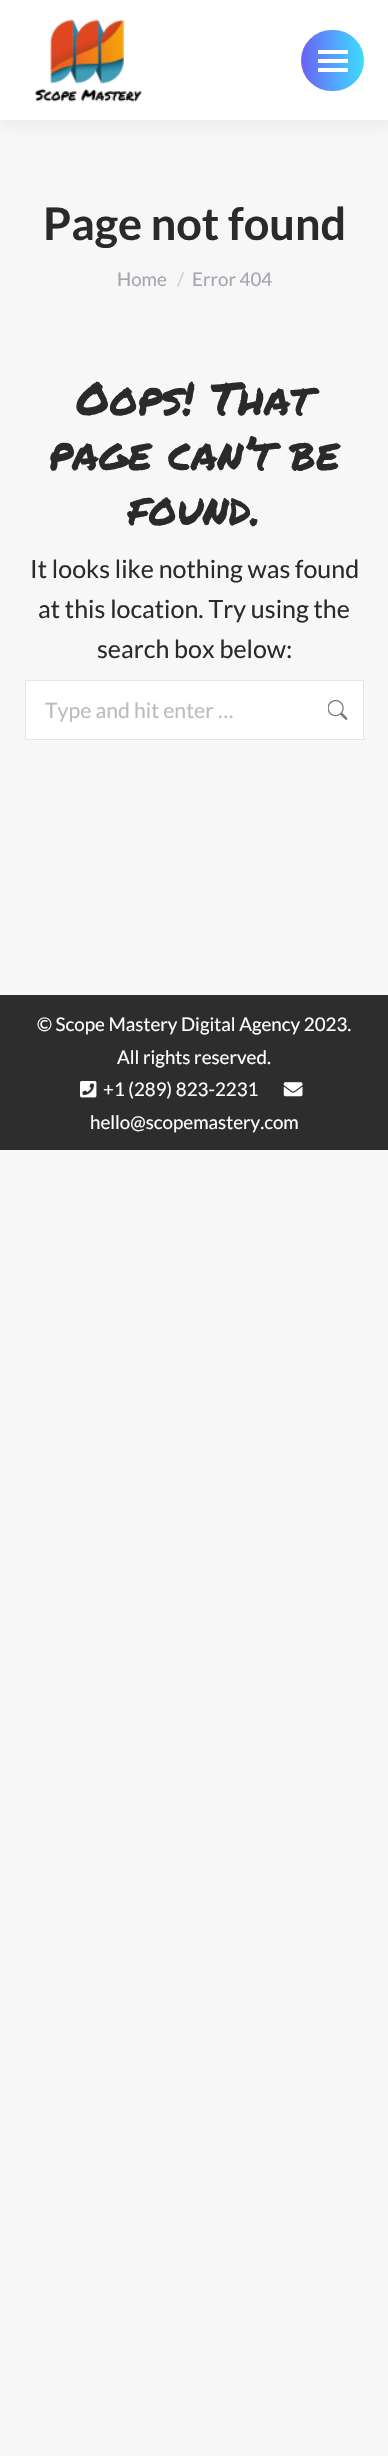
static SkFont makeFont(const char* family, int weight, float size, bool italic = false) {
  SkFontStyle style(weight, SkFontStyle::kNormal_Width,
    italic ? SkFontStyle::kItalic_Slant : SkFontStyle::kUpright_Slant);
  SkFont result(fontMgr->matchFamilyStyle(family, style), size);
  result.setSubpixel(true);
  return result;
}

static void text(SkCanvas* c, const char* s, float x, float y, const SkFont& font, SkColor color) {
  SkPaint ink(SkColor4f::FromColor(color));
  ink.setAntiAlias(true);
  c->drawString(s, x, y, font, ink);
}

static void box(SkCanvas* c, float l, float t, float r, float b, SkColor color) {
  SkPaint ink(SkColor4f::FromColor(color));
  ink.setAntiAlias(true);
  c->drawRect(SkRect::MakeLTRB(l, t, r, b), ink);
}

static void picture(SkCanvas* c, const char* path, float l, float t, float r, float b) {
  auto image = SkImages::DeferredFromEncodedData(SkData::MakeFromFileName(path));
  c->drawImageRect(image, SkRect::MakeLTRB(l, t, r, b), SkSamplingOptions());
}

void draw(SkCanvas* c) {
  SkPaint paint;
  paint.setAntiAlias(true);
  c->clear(0xfff7f7f7);
  paint.setColor(0x12000000);
  paint.setMaskFilter(SkMaskFilter::MakeBlur(kNormal_SkBlurStyle, 9.5f));
  c->drawRect(SkRect::MakeLTRB(-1, -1, 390, 121), paint);
  paint.setMaskFilter(nullptr);
  box(c, 0, 0, 388, 120, 0xffffffff);
  picture(c, "img_01.png", 34, 19, 142, 102);
  {
    const SkColor colors[] = {0xff6b61f4, 0xff54a0fe, 0xff3dddfb};
    const float stops[] = {0, 0.5f, 1};
    const SkPoint ends[] = {{301, 61}, {364, 61}};
    paint.setShader(SkGradientShader::MakeLinear(ends, colors, stops, 3, SkTileMode::kClamp));
    paint.setAlpha(255);
  }
  c->drawRoundRect(SkRect::MakeLTRB(301, 30, 364, 91), 30.5f, 30.5f, paint);
  box(c, 318, 50, 348, 54, 0xffffffff);
  box(c, 318, 59, 348, 63, 0xffffffff);
  box(c, 318, 68, 348, 72, 0xffffffff);
  SkFont face1 = makeFont("Lato", 700, 45);
  text(c, "Page not found", 43, 240, face1, 0xff2a2a2d);
  SkFont face2 = makeFont("Lato", 400, 18.75f);
  text(c, "Home", 117, 286, face2, 0xffa4a5ae);
  text(c, "/", 177, 286, face2, 0xffceced3);
  text(c, "Error 404", 192, 286, face2, 0xffa4a5ae);
  SkFont face3 = makeFont("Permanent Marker", 400, 45);
  text(c, "Oops! That", 76, 415, face3, 0xff2a2a2d);
  text(c, "page can’t be", 49, 470, face3, 0xff2a2a2d);
  text(c, "found.", 128, 525, face3, 0xff2a2a2d);
  SkFont face4 = makeFont("Lato", 400, 25);
  text(c, "It looks like nothing was found", 30, 578, face4, 0xff2a2a2d);
  text(c, "at this location. Try using the", 38, 618, face4, 0xff2a2a2d);
  text(c, "search box below:", 97, 658, face4, 0xff2a2a2d);
  paint.setShader(nullptr);
  paint.setColor(0xffffffff);
  c->drawRect(SkRect::MakeLTRB(25.5f, 680.5f, 363.5f, 739.5f), paint);
  paint.setStyle(SkPaint::kStroke_Style);
  paint.setStrokeWidth(1);
  paint.setColor(0xffe6e6e6);
  c->drawRect(SkRect::MakeLTRB(25.5f, 680.5f, 363.5f, 739.5f), paint);
  SkFont face5 = makeFont("Lato", 400, 21.25f);
  text(c, "Type and hit enter …", 45, 718, face5, 0xffbbbbc0);
  picture(c, "img_02.png", 328, 700, 348, 720);
  box(c, 0, 995, 388, 1150, 0xff2d2d2d);
  text(c, "© Scope Mastery Digital Agency 2023.", 37, 1031, face2, 0xffffffff);
  text(c, "All rights reserved.", 117, 1064, face2, 0xffffffff);
  picture(c, "img_03.png", 80, 1081, 97, 1098);
  text(c, "+1 (289) 823-2231", 103, 1096, face2, 0xffffffff);
  picture(c, "img_04.png", 283, 1082, 303, 1097);
  text(c, "hello@scopemastery.com", 90, 1129, face2, 0xffffffff);
}
